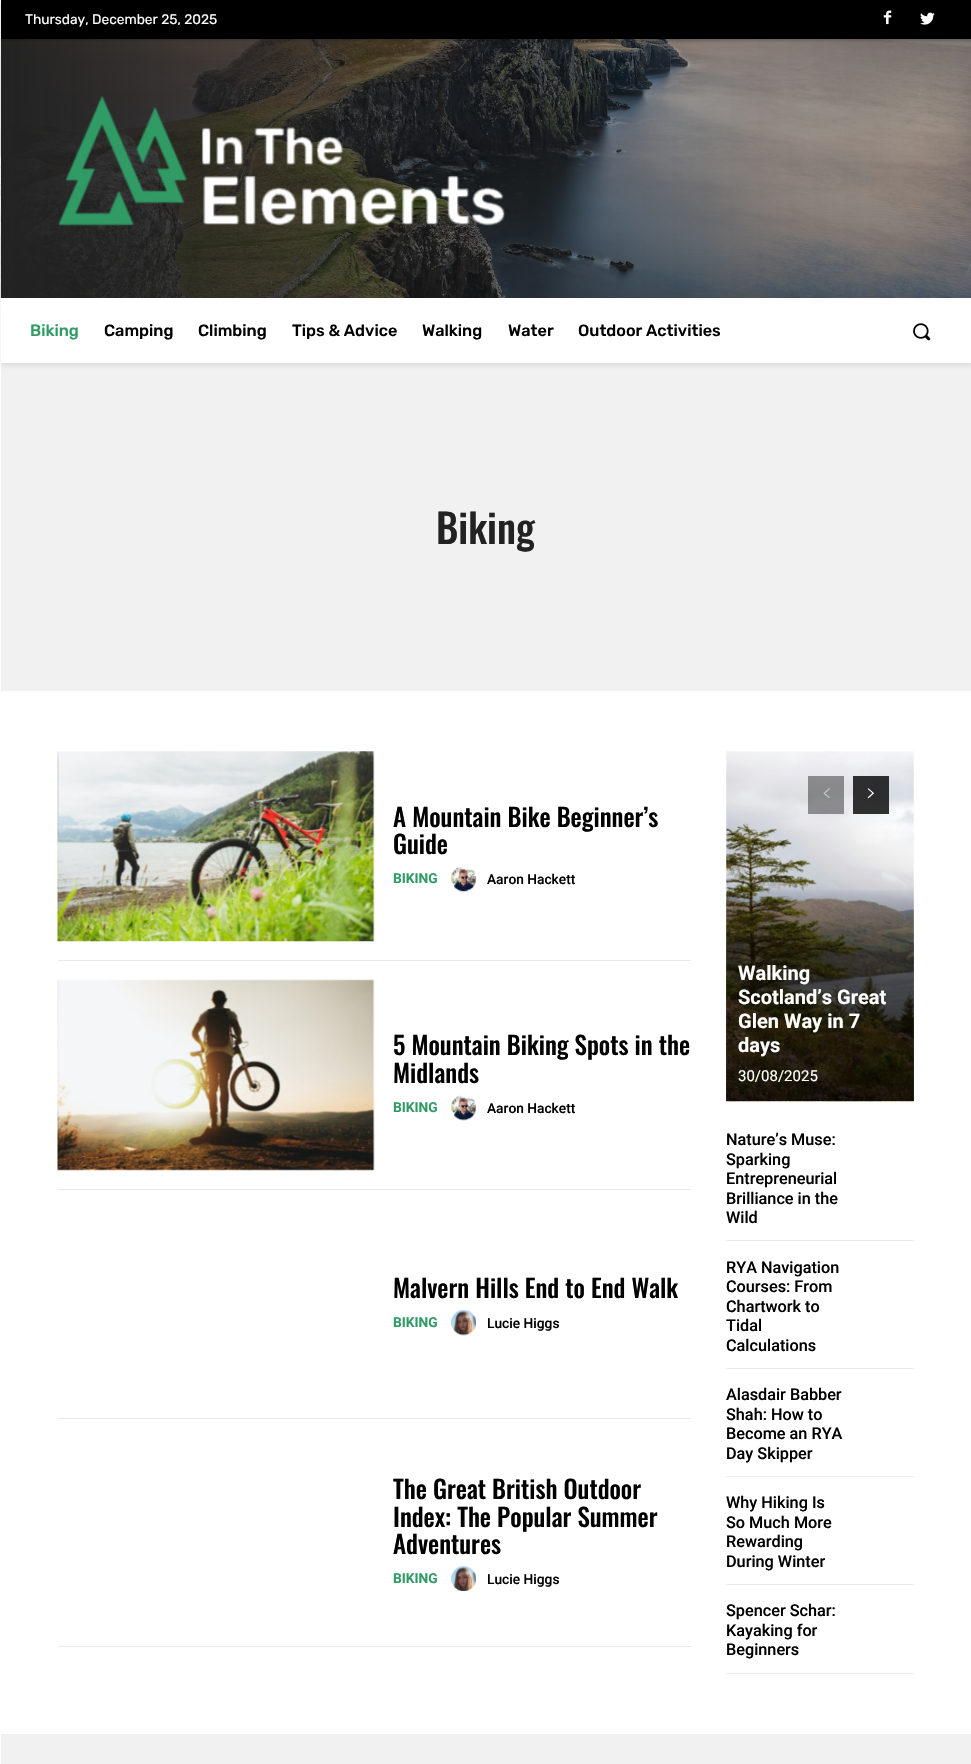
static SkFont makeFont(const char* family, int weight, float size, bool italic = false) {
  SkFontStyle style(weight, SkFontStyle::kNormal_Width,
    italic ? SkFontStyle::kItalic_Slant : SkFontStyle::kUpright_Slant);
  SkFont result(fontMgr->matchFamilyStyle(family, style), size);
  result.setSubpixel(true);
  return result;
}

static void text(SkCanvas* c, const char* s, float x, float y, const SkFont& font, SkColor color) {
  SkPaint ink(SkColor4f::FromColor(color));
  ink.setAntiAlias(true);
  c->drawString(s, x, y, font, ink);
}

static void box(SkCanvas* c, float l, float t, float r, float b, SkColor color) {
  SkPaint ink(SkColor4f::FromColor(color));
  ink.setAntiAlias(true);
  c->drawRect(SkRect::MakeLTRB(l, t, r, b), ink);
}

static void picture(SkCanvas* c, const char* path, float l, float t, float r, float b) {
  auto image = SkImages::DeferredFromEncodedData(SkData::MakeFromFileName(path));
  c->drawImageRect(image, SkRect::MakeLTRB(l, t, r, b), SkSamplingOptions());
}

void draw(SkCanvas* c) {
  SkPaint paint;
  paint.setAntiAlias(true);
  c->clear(0xffffffff);
  box(c, 1, 0, 971, 39, 0xff000000);
  picture(c, "img_01.png", 883, 10, 892, 25);
  picture(c, "img_02.png", 920, 12, 935, 25);
  picture(c, "img_03.png", 0, 39, 971, 298);
  {
    const SkColor colors[] = {0xff222222, 0x00222222};
    const float stops[] = {0, 1};
    const SkPoint ends[] = {{0.6f, 201}, {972, 201}};
    paint.setShader(SkGradientShader::MakeLinear(ends, colors, stops, 2, SkTileMode::kClamp));
    paint.setAlpha(255);
  }
  c->drawRect(SkRect::MakeLTRB(1, 39, 951, 298), paint);
  c->save();
  c->clipPath(SkPathBuilder(SkPathFillType::kEvenOdd).moveTo(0, 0).lineTo(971, 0).lineTo(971, 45).lineTo(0, 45).close().moveTo(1, 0).lineTo(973, 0).lineTo(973, 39).lineTo(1, 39).close().detach(), true);
  paint.setShader(nullptr);
  paint.setColor(0x260a0000);
  paint.setMaskFilter(SkMaskFilter::MakeBlur(kNormal_SkBlurStyle, 1));
  c->drawRect(SkRect::MakeLTRB(1, 3, 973, 41), paint);
  paint.setMaskFilter(nullptr);
  c->restore();
  SkFont face1 = makeFont("Rubik", 400, 13.75f);
  text(c, "Thursday, December 25, 2025", 25, 24, face1, 0xffffffff);
  picture(c, "img_04.png", 58, 96, 505, 226);
  box(c, 1, 363, 971, 1764, 0xfff1f1f1);
  c->save();
  c->clipPath(SkPathBuilder(SkPathFillType::kEvenOdd).moveTo(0, 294).lineTo(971, 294).lineTo(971, 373).lineTo(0, 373).close().moveTo(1, 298).lineTo(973, 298).lineTo(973, 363).lineTo(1, 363).close().detach(), true);
  paint.setColor(0x14000000);
  paint.setMaskFilter(SkMaskFilter::MakeBlur(kNormal_SkBlurStyle, 2));
  c->drawRect(SkRect::MakeLTRB(1, 301, 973, 366), paint);
  paint.setMaskFilter(nullptr);
  c->restore();
  SkFont face2 = makeFont("Rubik", 500, 16.25f);
  text(c, "Biking", 30, 336, face2, 0xff309b65);
  text(c, "Camping", 104, 336, face2, 0xff000000);
  text(c, "Climbing", 198, 336, face2, 0xff000000);
  text(c, "Tips & Advice", 292, 336, face2, 0xff000000);
  text(c, "Walking", 422, 336, face2, 0xff000000);
  text(c, "Water", 508, 336, face2, 0xff000000);
  text(c, "Outdoor Activities", 578, 336, face2, 0xff000000);
  picture(c, "img_05.png", 913, 323, 931, 341);
  SkFont face3 = makeFont("Oswald", 500, 40);
  text(c, "Biking", 436, 544, face3, 0xff222222);
  box(c, 1, 691, 971, 1734, 0xffffffff);
  box(c, 58, 960, 691, 961, 0xffeaeaea);
  picture(c, "img_06.png", 57, 751, 375, 942);
  SkFont face4 = makeFont("Oswald", 500, 25);
  text(c, "A Mountain Bike Beginner’s", 393, 827, face4, 0xff000000);
  text(c, "Guide", 393, 854, face4, 0xff000000);
  SkFont face5 = makeFont("Roboto", 700, 13.75f);
  text(c, "BIKING", 393, 883, face5, 0xff309b65);
  picture(c, "img_07.png", 451, 866, 476, 892);
  SkFont face6 = makeFont("Roboto", 500, 13.75f);
  text(c, "Aaron Hackett", 487, 884, face6, 0xff000000);
  box(c, 58, 1189, 691, 1190, 0xffeaeaea);
  picture(c, "img_08.png", 57, 979, 375, 1171);
  text(c, "5 Mountain Biking Spots in the", 393, 1055, face4, 0xff000000);
  text(c, "Midlands", 393, 1083, face4, 0xff000000);
  text(c, "BIKING", 393, 1112, face5, 0xff309b65);
  picture(c, "img_09.png", 451, 1095, 476, 1121);
  text(c, "Aaron Hackett", 487, 1113, face6, 0xff000000);
  box(c, 58, 1418, 691, 1419, 0xffeaeaea);
  text(c, "Malvern Hills End to End Walk", 393, 1298, face4, 0xff000000);
  text(c, "BIKING", 393, 1327, face5, 0xff309b65);
  picture(c, "img_10.png", 451, 1310, 476, 1336);
  text(c, "Lucie Higgs", 487, 1328, face6, 0xff000000);
  box(c, 58, 1646, 691, 1647, 0xffeaeaea);
  text(c, "The Great British Outdoor", 393, 1499, face4, 0xff000000);
  text(c, "Index: The Popular Summer", 393, 1527, face4, 0xff000000);
  text(c, "Adventures", 393, 1554, face4, 0xff000000);
  text(c, "BIKING", 393, 1583, face5, 0xff309b65);
  picture(c, "img_11.png", 451, 1566, 476, 1591);
  text(c, "Lucie Higgs", 487, 1584, face6, 0xff000000);
  picture(c, "img_14.png", 726, 751, 914, 1102);
  box(c, 808, 776, 844, 814, 0x66000000);
  picture(c, "img_12.png", 823, 788, 830, 798);
  box(c, 853, 776, 889, 814, 0xcc000000);
  picture(c, "img_13.png", 867, 788, 874, 799);
  {
    const SkColor colors[] = {0xcc000000, 0x80000000, 0x00000000, 0x00000000};
    const float stops[] = {0, 0.42f, 0.61f, 1};
    const SkPoint ends[] = {{820, 1101}, {820, 751}};
    paint.setShader(SkGradientShader::MakeLinear(ends, colors, stops, 4, SkTileMode::kClamp));
    paint.setAlpha(255);
  }
  c->drawRect(SkRect::MakeLTRB(726, 890, 914, 1101), paint);
  SkFont face7 = makeFont("Roboto", 700, 20);
  text(c, "Walking", 738, 980, face7, 0xffffffff);
  text(c, "Scotland’s Great", 738, 1004, face7, 0xffffffff);
  text(c, "Glen Way in 7", 738, 1028, face7, 0xffffffff);
  text(c, "days", 738, 1052, face7, 0xffffffff);
  SkFont face8 = makeFont("Roboto", 400, 15);
  text(c, "30/08/2025", 738, 1081, face8, 0xffffffff);
  box(c, 726, 1240, 914, 1241, 0xffeaeaea);
  SkFont face9 = makeFont("Roboto", 500, 16.25f);
  text(c, "Nature’s Muse:", 726, 1145, face9, 0xff000000);
  text(c, "Sparking", 726, 1165, face9, 0xff000000);
  text(c, "Entrepreneurial", 726, 1184, face9, 0xff000000);
  text(c, "Brilliance in the", 726, 1204, face9, 0xff000000);
  text(c, "Wild", 726, 1223, face9, 0xff000000);
  box(c, 726, 1368, 914, 1369, 0xffeaeaea);
  text(c, "RYA Navigation", 726, 1273, face9, 0xff000000);
  text(c, "Courses: From", 726, 1292, face9, 0xff000000);
  text(c, "Chartwork to", 726, 1312, face9, 0xff000000);
  text(c, "Tidal", 726, 1331, face9, 0xff000000);
  text(c, "Calculations", 726, 1351, face9, 0xff000000);
  box(c, 726, 1476, 914, 1477, 0xffeaeaea);
  text(c, "Alasdair Babber", 726, 1400, face9, 0xff000000);
  text(c, "Shah: How to", 726, 1420, face9, 0xff000000);
  text(c, "Become an RYA", 726, 1439, face9, 0xff000000);
  text(c, "Day Skipper", 726, 1459, face9, 0xff000000);
  box(c, 726, 1584, 914, 1585, 0xffeaeaea);
  text(c, "Why Hiking Is", 726, 1508, face9, 0xff000000);
  text(c, "So Much More", 726, 1528, face9, 0xff000000);
  text(c, "Rewarding", 726, 1547, face9, 0xff000000);
  text(c, "During Winter", 726, 1567, face9, 0xff000000);
  box(c, 726, 1673, 914, 1674, 0xffeaeaea);
  text(c, "Spencer Schar:", 726, 1616, face9, 0xff000000);
  text(c, "Kayaking for", 726, 1636, face9, 0xff000000);
  text(c, "Beginners", 726, 1655, face9, 0xff000000);
}
